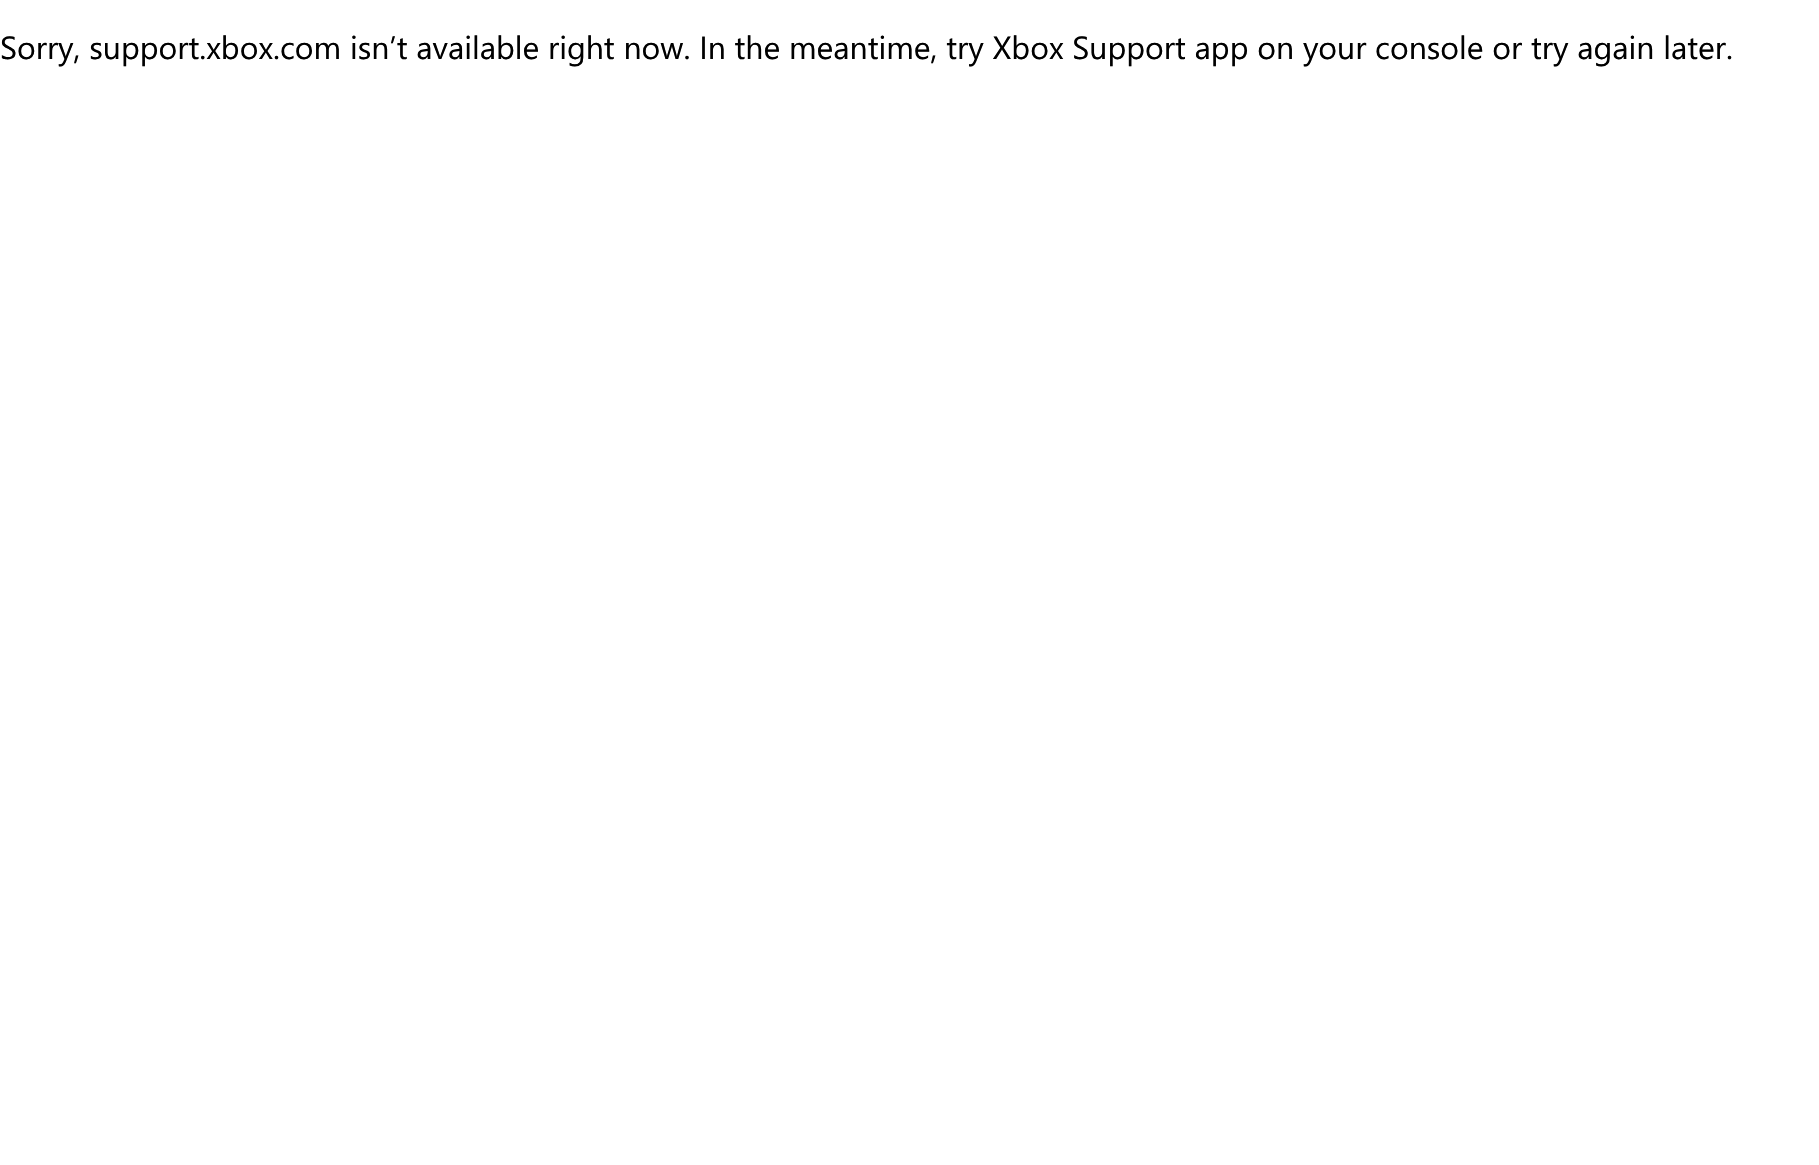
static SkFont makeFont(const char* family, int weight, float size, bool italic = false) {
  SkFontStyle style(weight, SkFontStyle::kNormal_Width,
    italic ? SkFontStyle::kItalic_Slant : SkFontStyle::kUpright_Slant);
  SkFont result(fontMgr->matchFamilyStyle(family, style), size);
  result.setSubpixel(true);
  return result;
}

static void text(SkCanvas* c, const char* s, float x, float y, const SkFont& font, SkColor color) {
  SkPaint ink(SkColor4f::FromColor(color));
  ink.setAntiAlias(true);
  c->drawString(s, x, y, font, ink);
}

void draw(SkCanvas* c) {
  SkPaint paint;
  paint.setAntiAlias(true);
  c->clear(0xffffffff);
  SkFont face1 = makeFont("Segoe UI", 400, 32);
  text(c, "Sorry, support.xbox.com isn’t available right now. In the meantime, try Xbox Support app on your console or try again later.", 0, 59, face1, 0xff000000);
}
